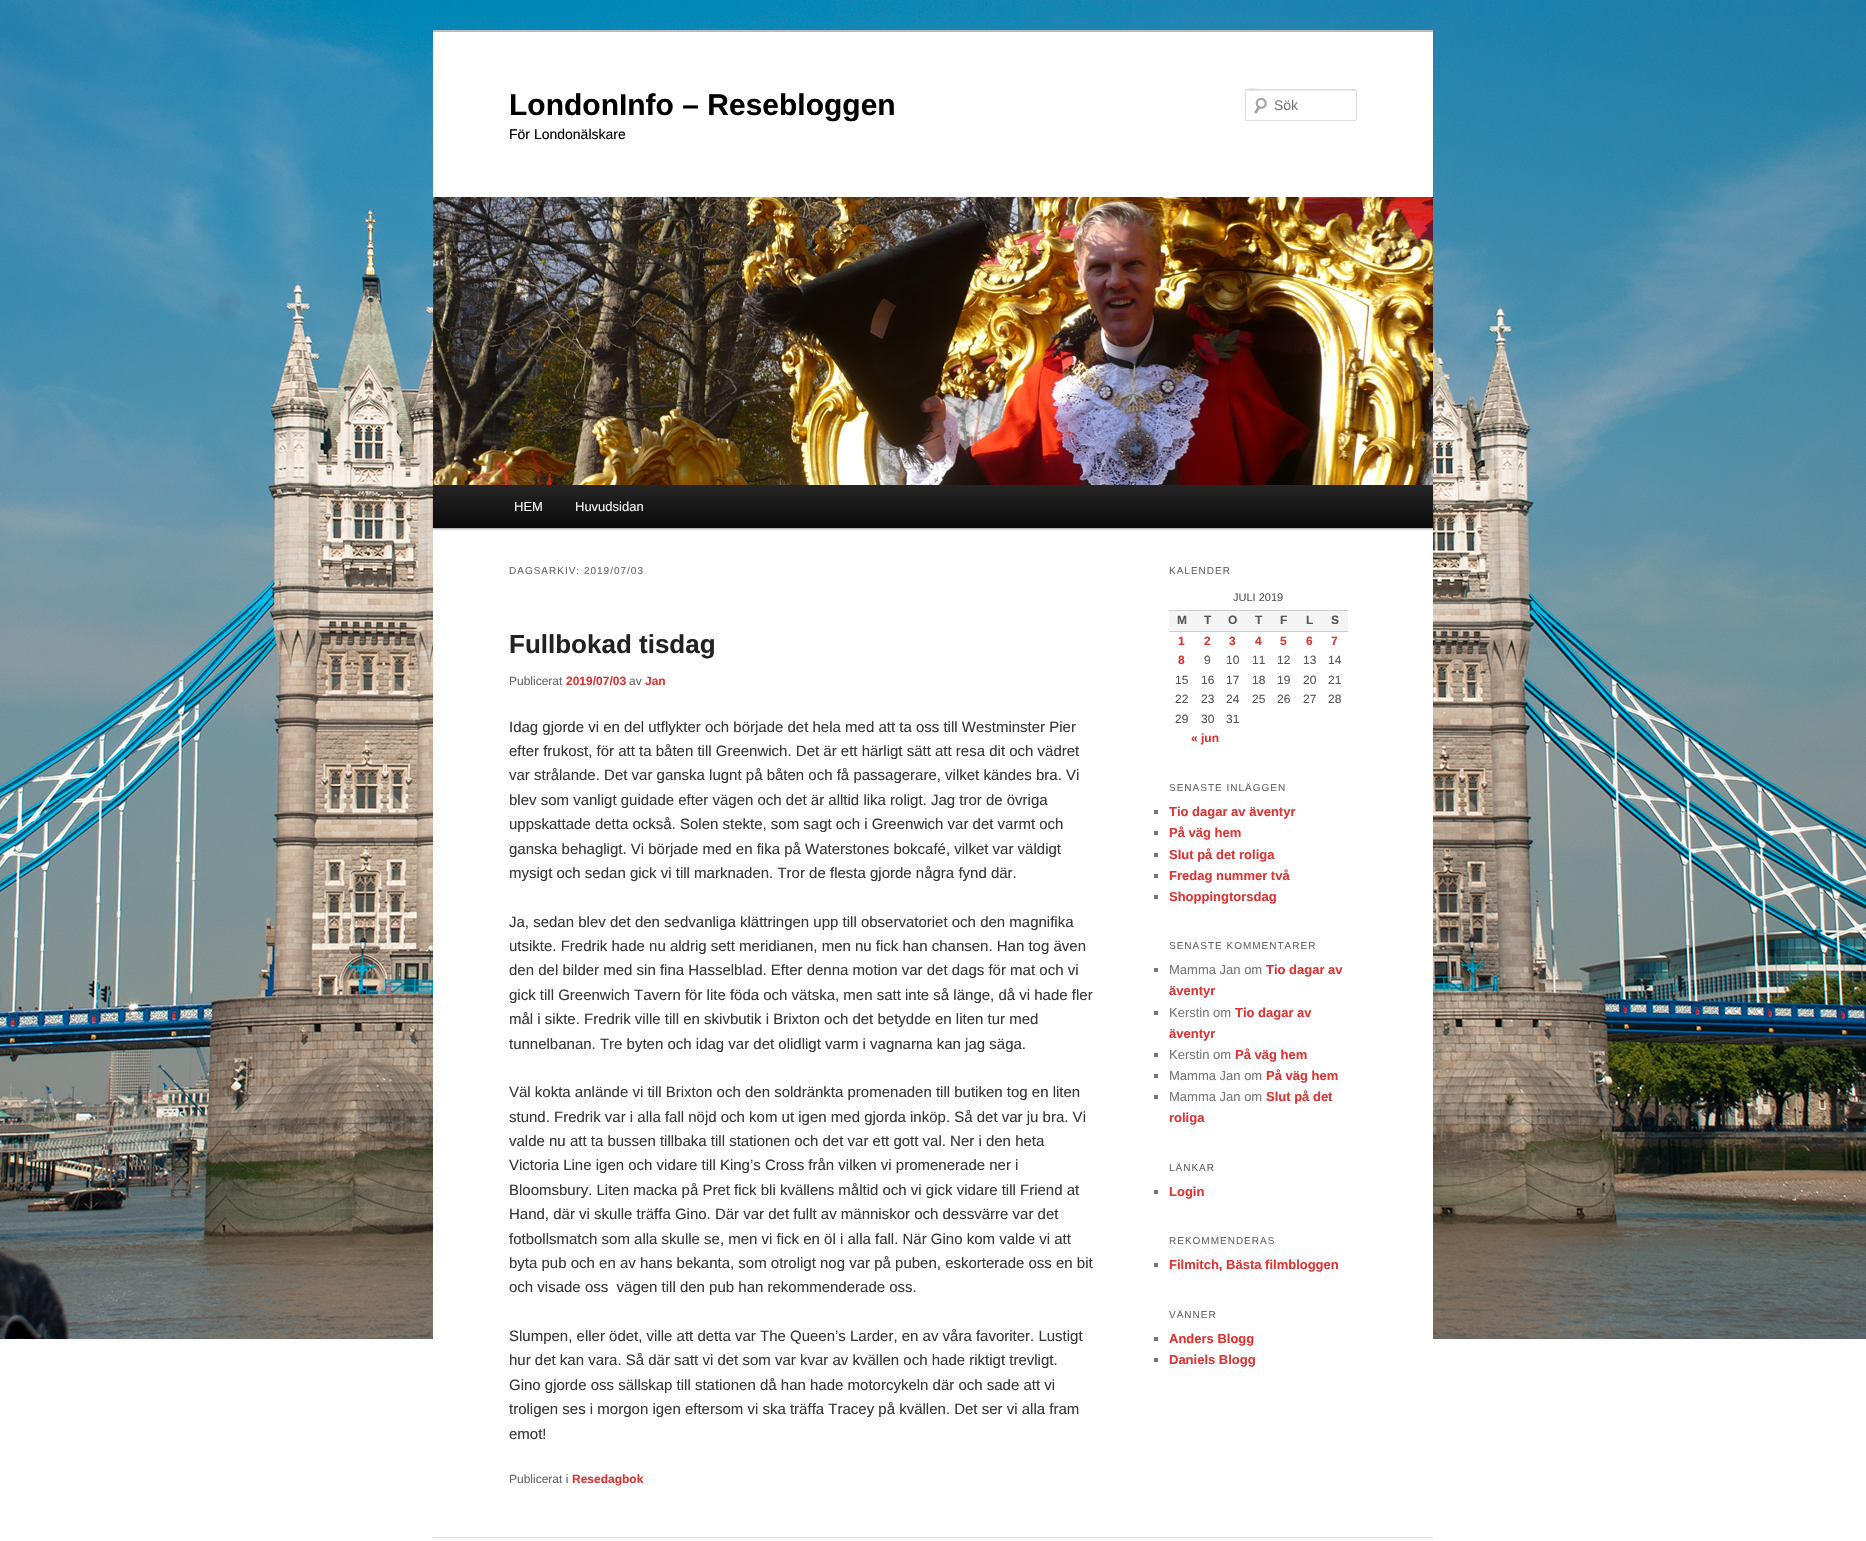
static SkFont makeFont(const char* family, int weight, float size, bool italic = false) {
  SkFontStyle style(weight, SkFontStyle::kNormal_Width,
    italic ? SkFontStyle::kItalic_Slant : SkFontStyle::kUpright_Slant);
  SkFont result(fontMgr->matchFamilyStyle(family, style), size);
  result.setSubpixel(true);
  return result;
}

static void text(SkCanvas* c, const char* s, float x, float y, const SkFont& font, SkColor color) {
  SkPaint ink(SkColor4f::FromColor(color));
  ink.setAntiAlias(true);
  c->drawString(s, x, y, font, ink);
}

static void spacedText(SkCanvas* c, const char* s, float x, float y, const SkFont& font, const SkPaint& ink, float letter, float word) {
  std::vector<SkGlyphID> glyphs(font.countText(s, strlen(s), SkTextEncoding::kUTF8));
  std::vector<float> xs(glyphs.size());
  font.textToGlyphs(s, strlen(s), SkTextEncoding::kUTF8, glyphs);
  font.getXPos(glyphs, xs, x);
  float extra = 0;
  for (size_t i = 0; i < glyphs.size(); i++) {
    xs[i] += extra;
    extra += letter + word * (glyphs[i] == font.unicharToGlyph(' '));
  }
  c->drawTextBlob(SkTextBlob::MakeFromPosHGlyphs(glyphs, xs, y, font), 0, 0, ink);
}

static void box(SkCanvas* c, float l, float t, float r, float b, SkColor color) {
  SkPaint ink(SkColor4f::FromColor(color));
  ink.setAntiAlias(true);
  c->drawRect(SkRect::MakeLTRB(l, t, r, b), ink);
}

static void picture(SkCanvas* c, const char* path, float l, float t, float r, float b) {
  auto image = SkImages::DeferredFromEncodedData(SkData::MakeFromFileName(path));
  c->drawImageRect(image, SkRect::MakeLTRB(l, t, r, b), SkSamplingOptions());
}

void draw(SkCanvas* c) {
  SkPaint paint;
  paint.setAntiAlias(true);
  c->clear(0xffffffff);
  picture(c, "img_01.png", 0, 0, 1866, 1339);
  box(c, 433, 32, 1433, 1339, 0xffffffff);
  box(c, 433, 30, 1433, 32, 0xffbbbbbb);
  SkFont face1 = makeFont("Liberation Sans", 700, 30);
  text(c, "LondonInfo – Resebloggen", 509, 115, face1, 0xff000000);
  SkFont face2 = makeFont("Liberation Sans", 400, 14);
  text(c, "För Londonälskare", 509, 139, face2, 0xff000000);
  picture(c, "img_02.png", 1254, 97, 1267, 114);
  paint.setColor(0xffe6e6e6);
  c->drawPath(SkPathBuilder().moveTo(1247, 91).lineTo(1356, 91).lineTo(1356, 92).lineTo(1355, 90).lineTo(1265, 90).cubicTo(1261, 90, 1246, 85, 1246, 92).cubicTo(1246, 91, 1246, 91, 1247, 91).close().detach(), paint);
  paint.setStyle(SkPaint::kStroke_Style);
  paint.setStrokeWidth(1);
  paint.setColor(0xffdddddd);
  c->drawRoundRect(SkRect::MakeLTRB(1245.5f, 89.5f, 1356.5f, 120.5f), 1.5f, 1.5f, paint);
  text(c, "Sök", 1274, 110, face2, 0xff777777);
  paint.setStyle(SkPaint::kFill_Style);
  paint.setColor(0x66000000);
  paint.setMaskFilter(SkMaskFilter::MakeBlur(kNormal_SkBlurStyle, 1));
  c->drawRect(SkRect::MakeLTRB(433, 486, 1433, 529), paint);
  paint.setMaskFilter(nullptr);
  picture(c, "img_03.png", 433, 197, 1433, 485);
  {
    const SkColor colors[] = {0xff252525, 0xff0a0a0a};
    const float stops[] = {0, 1};
    const SkPoint ends[] = {{933, 485}, {933, 528}};
    paint.setShader(SkGradientShader::MakeLinear(ends, colors, stops, 2, SkTileMode::kClamp));
    paint.setAlpha(255);
  }
  c->drawRect(SkRect::MakeLTRB(433, 485, 1433, 528), paint);
  SkFont face3 = makeFont("Liberation Sans", 400, 13);
  text(c, "HEM", 514, 511, face3, 0xffeeeeee);
  text(c, "Huvudsidan", 575, 511, face3, 0xffeeeeee);
  SkFont face4 = makeFont("Liberation Sans", 400, 10);
  paint.setShader(nullptr);
  paint.setColor(0xff666666);
  spacedText(c, "DAGSARKIV: 2019/07/03", 509, 574, face4, paint, 1, 0);
  SkFont face5 = makeFont("Liberation Sans", 700, 26);
  text(c, "Fullbokad tisdag", 509, 653, face5, 0xff222222);
  SkFont face6 = makeFont("Liberation Sans", 400, 12);
  text(c, "Publicerat", 509, 685, face6, 0xff666666);
  SkFont face7 = makeFont("Liberation Sans", 700, 12);
  text(c, "2019/07/03", 566, 685, face7, 0xffdd3333);
  text(c, "av", 629, 685, face6, 0xff666666);
  text(c, "Jan", 645, 685, face7, 0xffdd3333);
  SkFont face8 = makeFont("Liberation Sans", 400, 15);
  text(c, "Idag gjorde vi en del utflykter och började det hela med att ta oss till Westminster Pier", 509, 732, face8, 0xff373737);
  text(c, "efter frukost, för att ta båten till Greenwich. Det är ett härligt sätt att resa dit och vädret", 509, 756, face8, 0xff373737);
  text(c, "var strålande. Det var ganska lugnt på båten och få passagerare, vilket kändes bra. Vi", 509, 780, face8, 0xff373737);
  text(c, "blev som vanligt guidade efter vägen och det är alltid lika roligt. Jag tror de övriga", 509, 805, face8, 0xff373737);
  text(c, "uppskattade detta också. Solen stekte, som sagt och i Greenwich var det varmt och", 509, 829, face8, 0xff373737);
  text(c, "ganska behagligt. Vi började med en fika på Waterstones bokcafé, vilket var väldigt", 509, 854, face8, 0xff373737);
  text(c, "mysigt och sedan gick vi till marknaden. Tror de flesta gjorde några fynd där.", 509, 878, face8, 0xff373737);
  text(c, "Ja, sedan blev det den sedvanliga klättringen upp till observatoriet och den magnifika", 509, 927, face8, 0xff373737);
  text(c, "utsikte. Fredrik hade nu aldrig sett meridianen, men nu fick han chansen. Han tog även", 509, 951, face8, 0xff373737);
  text(c, "den del bilder med sin fina Hasselblad. Efter denna motion var det dags för mat och vi", 509, 975, face8, 0xff373737);
  text(c, "gick till Greenwich Tavern för lite föda och vätska, men satt inte så länge, då vi hade fler", 509, 1000, face8, 0xff373737);
  text(c, "mål i sikte. Fredrik ville till en skivbutik i Brixton och det betydde en liten tur med", 509, 1024, face8, 0xff373737);
  text(c, "tunnelbanan. Tre byten och idag var det olidligt varm i vagnarna kan jag säga.", 509, 1049, face8, 0xff373737);
  text(c, "Väl kokta anlände vi till Brixton och den soldränkta promenaden till butiken tog en liten", 509, 1097, face8, 0xff373737);
  text(c, "stund. Fredrik var i alla fall nöjd och kom ut igen med gjorda inköp. Så det var ju bra. Vi", 509, 1122, face8, 0xff373737);
  text(c, "valde nu att ta bussen tillbaka till stationen och det var ett gott val. Ner i den heta", 509, 1146, face8, 0xff373737);
  text(c, "Victoria Line igen och vidare till King’s Cross från vilken vi promenerade ner i", 509, 1170, face8, 0xff373737);
  text(c, "Bloomsbury. Liten macka på Pret fick bli kvällens måltid och vi gick vidare till Friend at", 509, 1195, face8, 0xff373737);
  text(c, "Hand, där vi skulle träffa Gino. Där var det fullt av människor och dessvärre var det", 509, 1219, face8, 0xff373737);
  text(c, "fotbollsmatch som alla skulle se, men vi fick en öl i alla fall. När Gino kom valde vi att", 509, 1244, face8, 0xff373737);
  text(c, "byta pub och en av hans bekanta, som otroligt nog var på puben, eskorterade oss en bit", 509, 1268, face8, 0xff373737);
  text(c, "och visade oss  vägen till den pub han rekommenderade oss.", 509, 1292, face8, 0xff373737);
  text(c, "Slumpen, eller ödet, ville att detta var The Queen’s Larder, en av våra favoriter. Lustigt", 509, 1341, face8, 0xff373737);
  text(c, "hur det kan vara. Så där satt vi det som var kvar av kvällen och hade riktigt trevligt.", 509, 1365, face8, 0xff373737);
  text(c, "Gino gjorde oss sällskap till stationen då han hade motorcykeln där och sade att vi", 509, 1390, face8, 0xff373737);
  text(c, "troligen ses i morgon igen eftersom vi ska träffa Tracey på kvällen. Det ser vi alla fram", 509, 1414, face8, 0xff373737);
  text(c, "emot!", 509, 1439, face8, 0xff373737);
  text(c, "Publicerat i", 509, 1483, face6, 0xff666666);
  text(c, "Resedagbok", 572, 1483, face7, 0xffdd3333);
  spacedText(c, "KALENDER", 1169, 574, face4, paint, 1, 0);
  SkFont face9 = makeFont("Liberation Sans", 400, 11);
  text(c, "JULI 2019", 1233, 601, face9, 0xff555555);
  box(c, 1169, 611, 1348, 631, 0xfff4f4f4);
  box(c, 1169, 610, 1348, 611, 0xffcccccc);
  box(c, 1169, 631, 1348, 632, 0xffcccccc);
  text(c, "M", 1177, 624, face7, 0xff555555);
  text(c, "T", 1204, 624, face7, 0xff555555);
  text(c, "O", 1228, 624, face7, 0xff555555);
  text(c, "T", 1255, 624, face7, 0xff555555);
  text(c, "F", 1280, 624, face7, 0xff555555);
  text(c, "L", 1306, 624, face7, 0xff555555);
  text(c, "S", 1331, 624, face7, 0xff555555);
  text(c, "1", 1178, 645, face7, 0xffdd3333);
  text(c, "2", 1204, 645, face7, 0xffdd3333);
  text(c, "3", 1229, 645, face7, 0xffdd3333);
  text(c, "4", 1255, 645, face7, 0xffdd3333);
  text(c, "5", 1280, 645, face7, 0xffdd3333);
  text(c, "6", 1306, 645, face7, 0xffdd3333);
  text(c, "7", 1331, 645, face7, 0xffdd3333);
  text(c, "8", 1178, 664, face7, 0xffdd3333);
  text(c, "9", 1204, 664, face6, 0xff555555);
  text(c, "10", 1226, 664, face6, 0xff555555);
  text(c, "11", 1252, 664, face6, 0xff555555);
  text(c, "12", 1277, 664, face6, 0xff555555);
  text(c, "13", 1303, 664, face6, 0xff555555);
  text(c, "14", 1328, 664, face6, 0xff555555);
  text(c, "15", 1175, 684, face6, 0xff555555);
  text(c, "16", 1201, 684, face6, 0xff555555);
  text(c, "17", 1226, 684, face6, 0xff555555);
  text(c, "18", 1252, 684, face6, 0xff555555);
  text(c, "19", 1277, 684, face6, 0xff555555);
  text(c, "20", 1303, 684, face6, 0xff555555);
  text(c, "21", 1328, 684, face6, 0xff555555);
  text(c, "22", 1175, 703, face6, 0xff555555);
  text(c, "23", 1201, 703, face6, 0xff555555);
  text(c, "24", 1226, 703, face6, 0xff555555);
  text(c, "25", 1252, 703, face6, 0xff555555);
  text(c, "26", 1277, 703, face6, 0xff555555);
  text(c, "27", 1303, 703, face6, 0xff555555);
  text(c, "28", 1328, 703, face6, 0xff555555);
  text(c, "29", 1175, 723, face6, 0xff555555);
  text(c, "30", 1201, 723, face6, 0xff555555);
  text(c, "31", 1226, 723, face6, 0xff555555);
  text(c, "« jun", 1191, 742, face7, 0xffdd3333);
  spacedText(c, "SENASTE INLÄGGEN", 1169, 791, face4, paint, 1, 0);
  box(c, 1154, 810, 1158, 814, 0xff777777);
  SkFont face10 = makeFont("Liberation Sans", 700, 13);
  text(c, "Tio dagar av äventyr", 1169, 816, face10, 0xffdd3333);
  box(c, 1154, 831, 1158, 835, 0xff777777);
  text(c, "På väg hem", 1169, 837, face10, 0xffdd3333);
  box(c, 1154, 853, 1158, 857, 0xff777777);
  text(c, "Slut på det roliga", 1169, 859, face10, 0xffdd3333);
  box(c, 1154, 874, 1158, 878, 0xff777777);
  text(c, "Fredag nummer två", 1169, 880, face10, 0xffdd3333);
  box(c, 1154, 895, 1158, 899, 0xff777777);
  text(c, "Shoppingtorsdag", 1169, 901, face10, 0xffdd3333);
  spacedText(c, "SENASTE KOMMENTARER", 1169, 949, face4, paint, 1, 0);
  box(c, 1154, 968, 1158, 972, 0xff777777);
  text(c, "Mamma Jan om", 1169, 974, face3, 0xff777777);
  text(c, "Tio dagar av", 1266, 974, face10, 0xffdd3333);
  text(c, "äventyr", 1169, 995, face10, 0xffdd3333);
  box(c, 1154, 1011, 1158, 1015, 0xff777777);
  text(c, "Kerstin om", 1169, 1017, face3, 0xff777777);
  text(c, "Tio dagar av", 1235, 1017, face10, 0xffdd3333);
  text(c, "äventyr", 1169, 1038, face10, 0xffdd3333);
  box(c, 1154, 1053, 1158, 1057, 0xff777777);
  text(c, "Kerstin om", 1169, 1059, face3, 0xff777777);
  text(c, "På väg hem", 1235, 1059, face10, 0xffdd3333);
  box(c, 1154, 1074, 1158, 1078, 0xff777777);
  text(c, "Mamma Jan om", 1169, 1080, face3, 0xff777777);
  text(c, "På väg hem", 1266, 1080, face10, 0xffdd3333);
  box(c, 1154, 1095, 1158, 1099, 0xff777777);
  text(c, "Mamma Jan om", 1169, 1101, face3, 0xff777777);
  text(c, "Slut på det", 1266, 1101, face10, 0xffdd3333);
  text(c, "roliga", 1169, 1122, face10, 0xffdd3333);
  spacedText(c, "LÄNKAR", 1169, 1171, face4, paint, 1, 0);
  box(c, 1154, 1190, 1158, 1194, 0xff777777);
  text(c, "Login", 1169, 1196, face10, 0xffdd3333);
  spacedText(c, "REKOMMENDERAS", 1169, 1244, face4, paint, 1, 0);
  box(c, 1154, 1263, 1158, 1267, 0xff777777);
  text(c, "Filmitch, Bästa filmbloggen", 1169, 1269, face10, 0xffdd3333);
  spacedText(c, "VÄNNER", 1169, 1318, face4, paint, 1, 0);
  box(c, 1154, 1337, 1158, 1341, 0xff777777);
  text(c, "Anders Blogg", 1169, 1343, face10, 0xffdd3333);
  box(c, 1154, 1358, 1158, 1362, 0xff777777);
  text(c, "Daniels Blogg", 1169, 1364, face10, 0xffdd3333);
  box(c, 433, 1538, 1433, 1541, 0xfff9f9f9);
  box(c, 433, 1537, 1433, 1538, 0xffdddddd);
}
